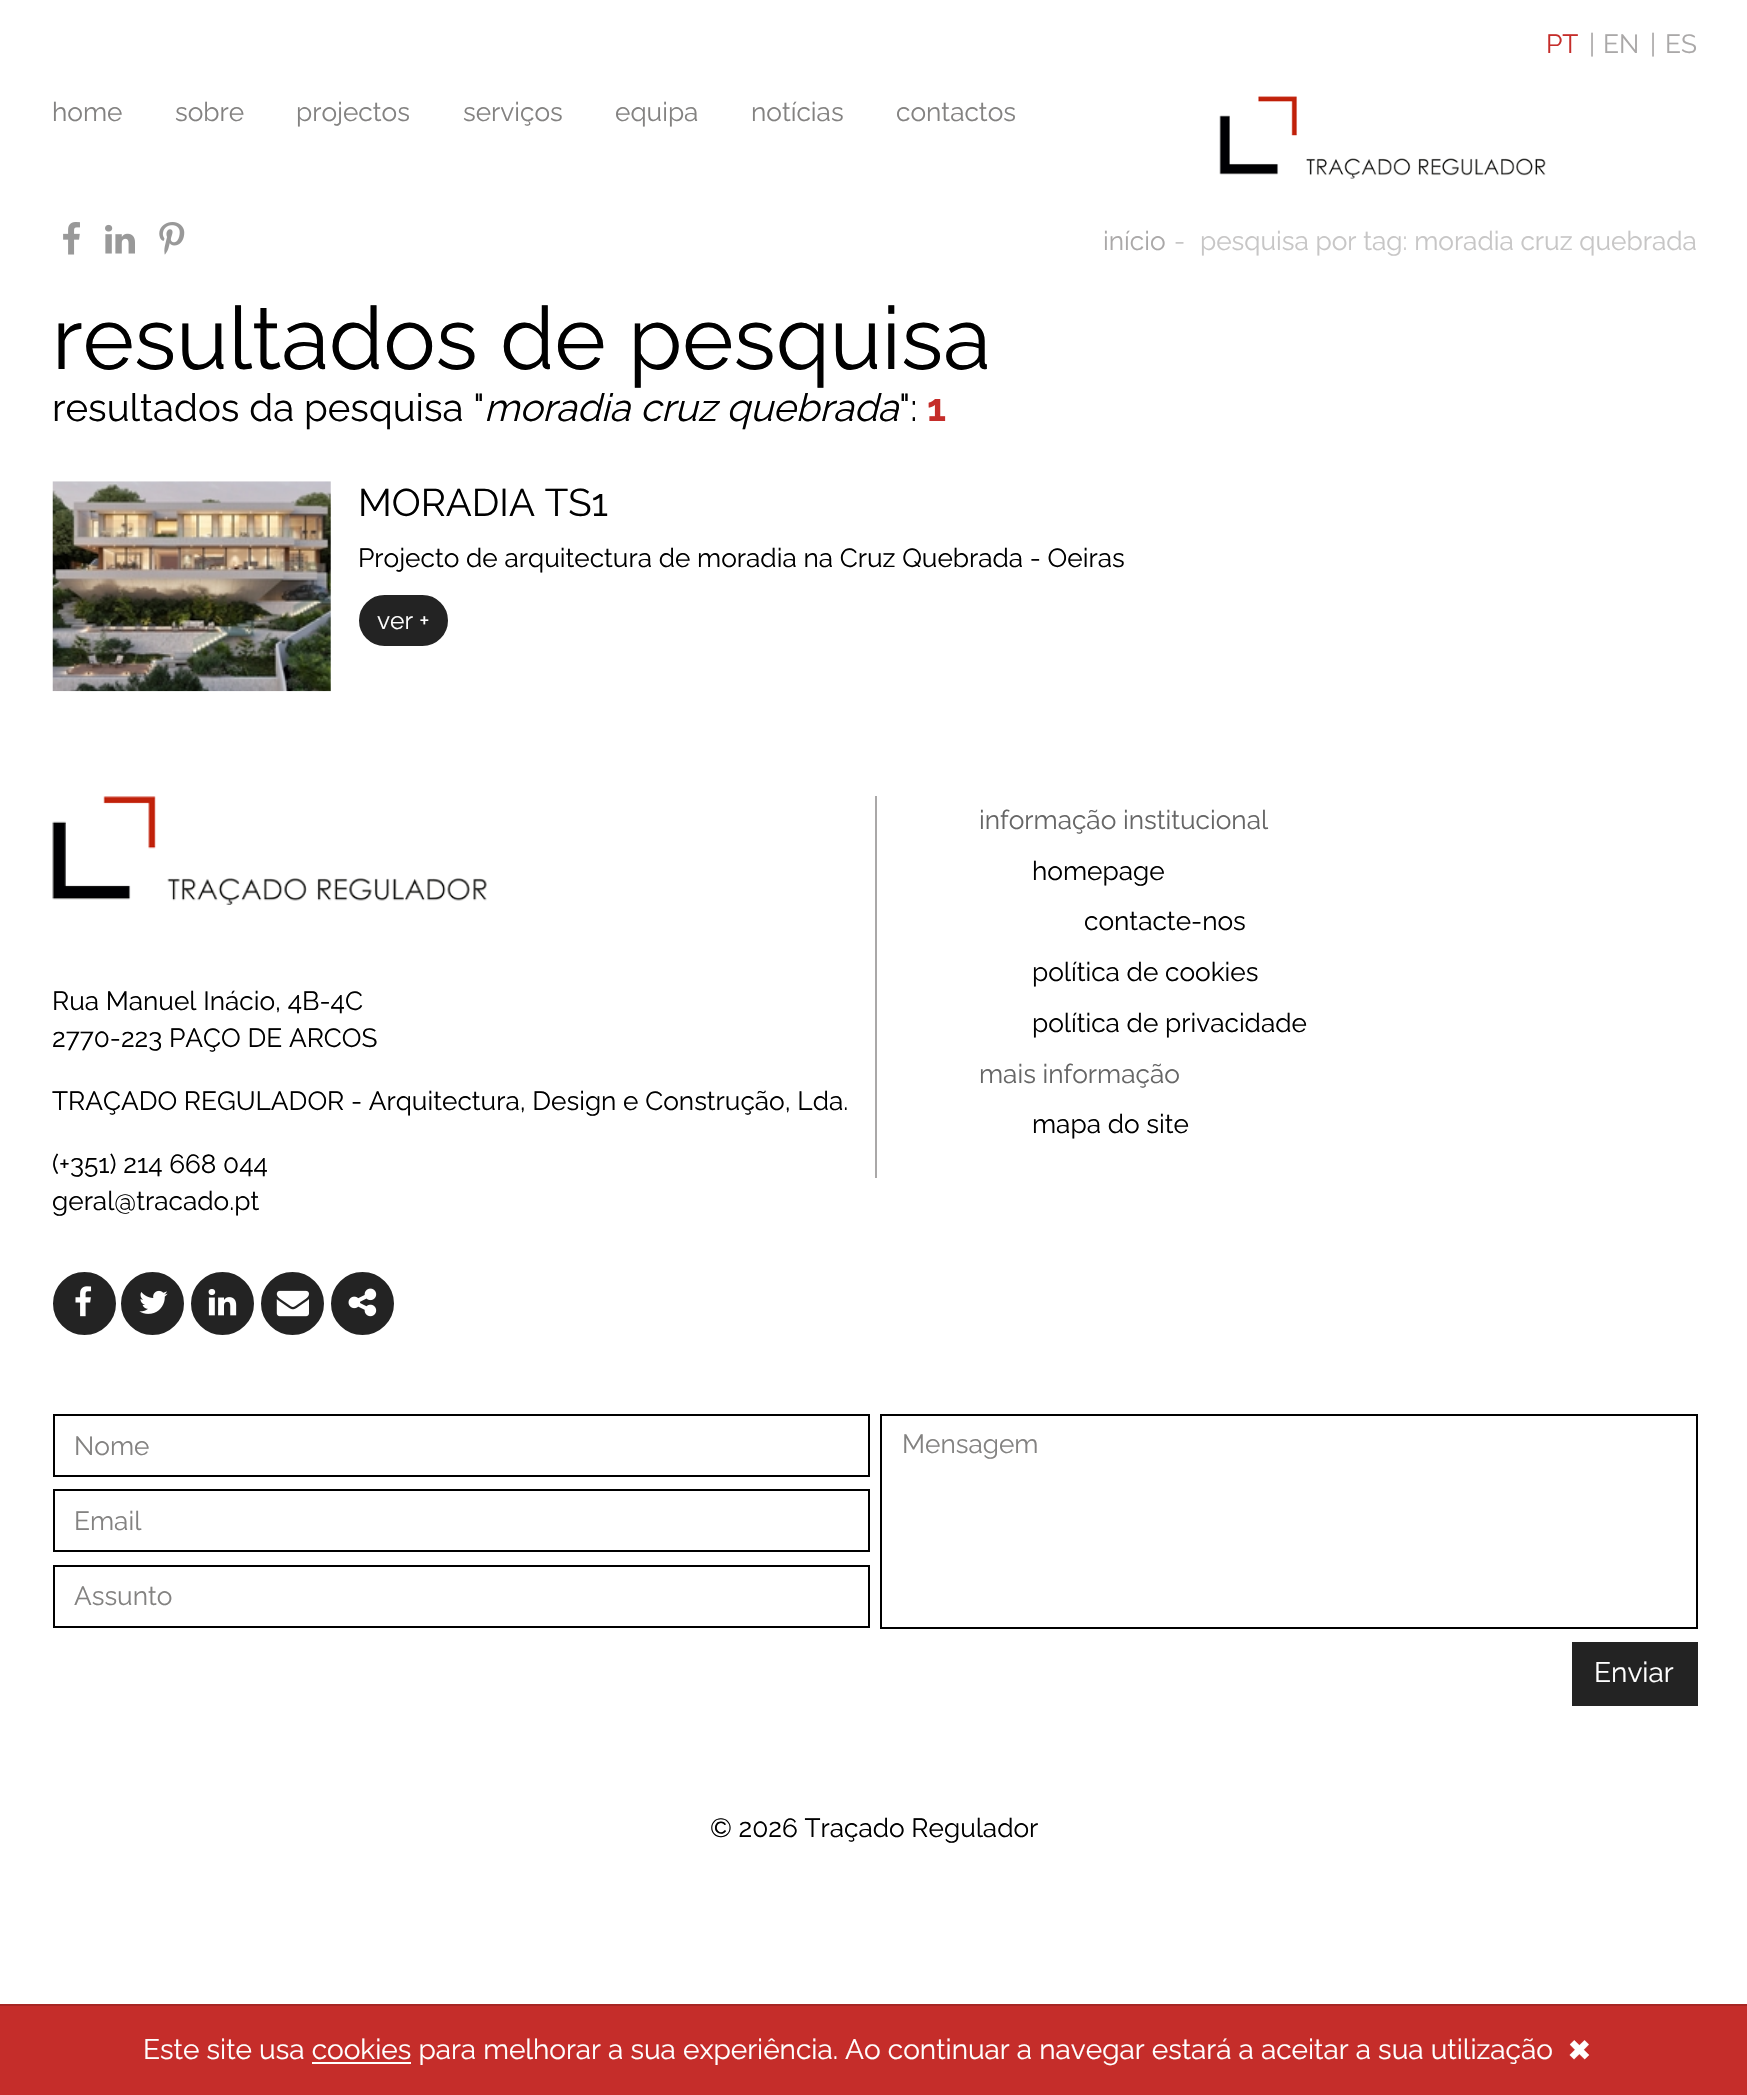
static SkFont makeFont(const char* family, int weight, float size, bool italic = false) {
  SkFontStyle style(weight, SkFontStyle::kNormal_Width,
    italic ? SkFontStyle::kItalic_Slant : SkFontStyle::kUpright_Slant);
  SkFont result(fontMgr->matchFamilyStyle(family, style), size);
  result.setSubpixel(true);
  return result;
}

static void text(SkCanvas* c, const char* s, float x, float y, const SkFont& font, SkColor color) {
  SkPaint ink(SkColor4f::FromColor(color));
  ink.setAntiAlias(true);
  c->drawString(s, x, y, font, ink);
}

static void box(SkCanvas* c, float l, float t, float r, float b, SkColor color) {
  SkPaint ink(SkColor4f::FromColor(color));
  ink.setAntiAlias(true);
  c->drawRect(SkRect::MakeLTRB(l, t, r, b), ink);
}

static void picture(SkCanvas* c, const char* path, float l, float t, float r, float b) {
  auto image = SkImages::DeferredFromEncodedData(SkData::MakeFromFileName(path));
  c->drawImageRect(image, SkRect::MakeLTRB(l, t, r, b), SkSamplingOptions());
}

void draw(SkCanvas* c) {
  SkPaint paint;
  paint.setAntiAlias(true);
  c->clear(0xffffffff);
  SkFont face1 = makeFont("Raleway", 400, 26.25f);
  text(c, "PT", 1546, 53, face1, 0xffc52d2a);
  text(c, "|", 1589, 53, face1, 0xffaaa8a8);
  text(c, "EN", 1603, 53, face1, 0xffaaa8a8);
  text(c, "|", 1650, 53, face1, 0xffaaa8a8);
  text(c, "ES", 1665, 53, face1, 0xffaaa8a8);
  picture(c, "img_01.png", 1219, 96, 1546, 179);
  text(c, "home", 52, 121, face1, 0xff838281);
  text(c, "sobre", 175, 121, face1, 0xff838281);
  text(c, "projectos", 296, 121, face1, 0xff838281);
  text(c, "serviços", 463, 121, face1, 0xff838281);
  text(c, "equipa", 615, 121, face1, 0xff838281);
  text(c, "notícias", 751, 121, face1, 0xff838281);
  text(c, "contactos", 896, 121, face1, 0xff838281);
  picture(c, "img_02.png", 63, 222, 80, 255);
  picture(c, "img_03.png", 105, 224, 135, 254);
  picture(c, "img_04.png", 159, 222, 185, 255);
  text(c, "início", 1103, 250, face1, 0xffaaa8a8);
  text(c, "-", 1174, 250, face1, 0xffc7c6c6);
  text(c, "pesquisa por tag: moradia cruz quebrada", 1200, 250, face1, 0xffc7c6c6);
  SkFont face2 = makeFont("Raleway", 400, 87.5f);
  text(c, "resultados de pesquisa", 52, 369, face2, 0xff000000);
  SkFont face3 = makeFont("Raleway", 400, 38.5f);
  text(c, "resultados da pesquisa \"", 52, 421, face3, 0xff000000);
  SkFont face4 = makeFont("Raleway", 400, 38.5f, true);
  text(c, "moradia cruz quebrada", 484, 421, face4, 0xff000000);
  text(c, "\":", 899, 421, face3, 0xff000000);
  SkFont face5 = makeFont("Raleway", 700, 38.5f);
  text(c, "1", 927, 421, face5, 0xffc52d2a);
  picture(c, "img_05.png", 52, 481, 331, 692);
  text(c, "MORADIA TS1", 358, 516, face3, 0xff000000);
  text(c, "Projecto de arquitectura de moradia na Cruz Quebrada - Oeiras", 358, 567, face1, 0xff000000);
  paint.setColor(0xff232323);
  c->drawRoundRect(SkRect::MakeLTRB(360, 596, 447, 645), 24.5f, 24.5f, paint);
  paint.setStyle(SkPaint::kStroke_Style);
  paint.setStrokeWidth(2);
  c->drawRoundRect(SkRect::MakeLTRB(360, 596, 447, 645), 24.5f, 24.5f, paint);
  SkFont face6 = makeFont("Raleway", 400, 24.5f);
  text(c, "ver +", 377, 629, face6, 0xffffffff);
  picture(c, "img_06.png", 52, 796, 487, 905);
  text(c, "Rua Manuel Inácio, 4B-4C", 52, 1010, face1, 0xff000000);
  text(c, "2770-223 PAÇO DE ARCOS", 52, 1047, face1, 0xff000000);
  text(c, "TRAÇADO REGULADOR - Arquitectura, Design e Construção, Lda.", 52, 1110, face1, 0xff000000);
  text(c, "(+351) 214 668 044", 52, 1173, face1, 0xff000000);
  text(c, "geral@tracado.pt", 52, 1210, face1, 0xff000000);
  box(c, 875, 796, 877, 1178, 0xffaaa8a8);
  text(c, "informação institucional", 979, 829, face1, 0xff666666);
  text(c, "homepage", 1032, 880, face1, 0xff000000);
  text(c, "contacte-nos", 1084, 930, face1, 0xff000000);
  text(c, "política de cookies", 1032, 981, face1, 0xff000000);
  text(c, "política de privacidade", 1032, 1032, face1, 0xff000000);
  text(c, "mais informação", 979, 1083, face1, 0xff666666);
  text(c, "mapa do site", 1032, 1133, face1, 0xff000000);
  paint.setStyle(SkPaint::kFill_Style);
  c->drawCircle(84.5f, 1303.5f, 30.5f, paint);
  paint.setStyle(SkPaint::kStroke_Style);
  c->drawCircle(84.5f, 1303.5f, 30.5f, paint);
  picture(c, "img_07.png", 75, 1286, 92, 1317);
  paint.setStyle(SkPaint::kFill_Style);
  c->drawCircle(152.5f, 1303.5f, 30.5f, paint);
  paint.setStyle(SkPaint::kStroke_Style);
  c->drawCircle(152.5f, 1303.5f, 30.5f, paint);
  picture(c, "img_08.png", 139, 1290, 168, 1314);
  paint.setStyle(SkPaint::kFill_Style);
  c->drawCircle(222.5f, 1303.5f, 30.5f, paint);
  paint.setStyle(SkPaint::kStroke_Style);
  c->drawCircle(222.5f, 1303.5f, 30.5f, paint);
  picture(c, "img_09.png", 208, 1289, 237, 1316);
  paint.setStyle(SkPaint::kFill_Style);
  c->drawCircle(292.5f, 1303.5f, 30.5f, paint);
  paint.setStyle(SkPaint::kStroke_Style);
  c->drawCircle(292.5f, 1303.5f, 30.5f, paint);
  picture(c, "img_10.png", 276, 1290, 309, 1317);
  paint.setStyle(SkPaint::kFill_Style);
  c->drawCircle(362.5f, 1303.5f, 30.5f, paint);
  paint.setStyle(SkPaint::kStroke_Style);
  c->drawCircle(362.5f, 1303.5f, 30.5f, paint);
  picture(c, "img_11.png", 348, 1288, 377, 1317);
  paint.setColor(0xff000000);
  c->drawRect(SkRect::MakeLTRB(54, 1415, 869, 1476), paint);
  text(c, "Nome", 74, 1455, face1, 0xff838281);
  c->drawRect(SkRect::MakeLTRB(54, 1490, 869, 1551), paint);
  text(c, "Email", 74, 1530, face1, 0xff838281);
  c->drawRect(SkRect::MakeLTRB(54, 1566, 869, 1627), paint);
  text(c, "Assunto", 74, 1605, face1, 0xff838281);
  c->drawRect(SkRect::MakeLTRB(881, 1415, 1697, 1628), paint);
  text(c, "Mensagem", 902, 1453, face1, 0xff838281);
  box(c, 1572, 1642, 1698, 1706, 0xff232323);
  SkFont face7 = makeFont("Raleway", 400, 28);
  text(c, "Enviar", 1594, 1682, face7, 0xffffffff);
  text(c, "© 2026 Traçado Regulador", 710, 1837, face1, 0xff000000);
  box(c, 0, 2006, 1747, 2095, 0xffc52d2a);
  box(c, 0, 2004, 1747, 2006, 0xffa72624);
  text(c, "Este site usa cookies para melhorar a sua experiência. Ao continuar a navegar estará a aceitar a sua utilização", 143, 2059, face7, 0xffffffff);
  SkFont face8 = makeFont("Raleway", 700, 52);
  text(c, "×", 1567, 2064, face8, 0xffffffff);
  box(c, 312, 2062, 411, 2064, 0xffffffff);
}
